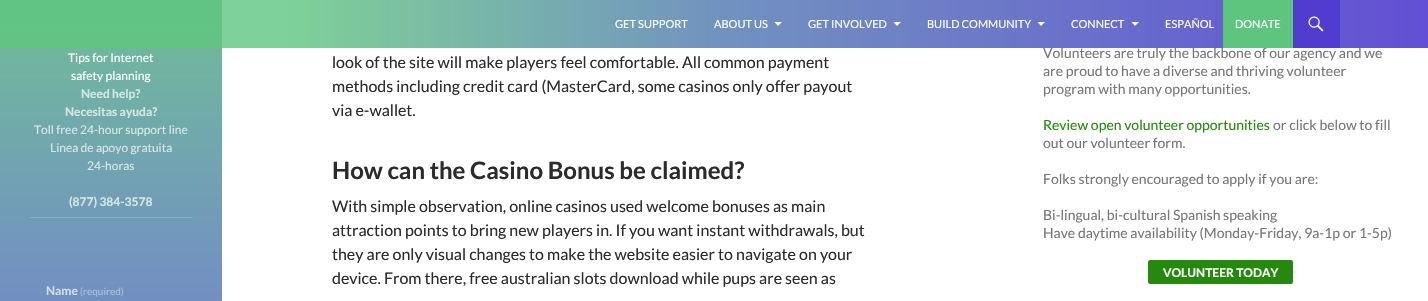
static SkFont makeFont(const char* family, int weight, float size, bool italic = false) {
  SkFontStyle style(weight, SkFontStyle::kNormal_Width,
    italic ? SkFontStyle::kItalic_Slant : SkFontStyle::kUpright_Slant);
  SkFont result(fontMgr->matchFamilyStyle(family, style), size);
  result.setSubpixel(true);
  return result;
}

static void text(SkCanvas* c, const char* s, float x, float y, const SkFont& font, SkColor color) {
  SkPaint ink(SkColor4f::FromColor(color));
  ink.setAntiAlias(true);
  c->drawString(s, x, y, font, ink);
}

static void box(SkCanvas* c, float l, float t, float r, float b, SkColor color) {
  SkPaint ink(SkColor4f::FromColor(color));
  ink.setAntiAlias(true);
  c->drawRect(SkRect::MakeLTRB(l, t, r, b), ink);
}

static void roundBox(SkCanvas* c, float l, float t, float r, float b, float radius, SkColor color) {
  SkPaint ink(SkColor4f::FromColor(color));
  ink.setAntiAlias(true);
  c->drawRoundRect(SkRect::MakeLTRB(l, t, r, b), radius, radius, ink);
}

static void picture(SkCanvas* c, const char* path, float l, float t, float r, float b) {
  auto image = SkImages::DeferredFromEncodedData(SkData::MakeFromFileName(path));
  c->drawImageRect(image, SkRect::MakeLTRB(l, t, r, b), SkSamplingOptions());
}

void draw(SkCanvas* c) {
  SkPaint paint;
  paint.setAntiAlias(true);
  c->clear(0xffffffff);
  {
    const SkColor colors[] = {0xff6ecb8b, 0xff7293c0, 0xff6350d5};
    const float stops[] = {0, 0.35f, 1};
    const SkPoint ends[] = {{111, -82}, {111, 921}};
    paint.setShader(SkGradientShader::MakeLinear(ends, colors, stops, 3, SkTileMode::kClamp));
    paint.setAlpha(255);
  }
  c->drawRect(SkRect::MakeLTRB(0, 0, 222, 301), paint);
  SkFont face1 = makeFont("Lato", 400, 14);
  text(c, "Volunteers are truly the backbone of our agency and we", 1043, 58, face1, 0xff767676);
  {
    const SkColor colors[] = {0xcc5ec57e, 0xe66287b9, 0xe6523cd0};
    const float stops[] = {0.2f, 0.5f, 1};
    const SkPoint ends[] = {{0, 24}, {1428, 24}};
    paint.setShader(SkGradientShader::MakeLinear(ends, colors, stops, 3, SkTileMode::kClamp));
    paint.setAlpha(255);
  }
  c->drawRect(SkRect::MakeLTRB(0, 0, 1428, 48), paint);
  SkFont face2 = makeFont("Lato", 400, 11);
  text(c, "GET SUPPORT", 615, 28, face2, 0xffffffff);
  text(c, "ABOUT US", 714, 28, face2, 0xffffffff);
  paint.setShader(nullptr);
  paint.setColor(0xffffffff);
  c->drawPath(SkPathBuilder().moveTo(774.5f, 22).lineTo(782, 22).lineTo(778, 26).close().detach(), paint);
  text(c, "GET INVOLVED", 808, 28, face2, 0xffffffff);
  c->drawPath(SkPathBuilder().moveTo(893.5f, 22).lineTo(901, 22).lineTo(897, 26).close().detach(), paint);
  text(c, "BUILD COMMUNITY", 927, 28, face2, 0xffffffff);
  c->drawPath(SkPathBuilder().moveTo(1037.5f, 22).lineTo(1045, 22).lineTo(1041, 26).close().detach(), paint);
  text(c, "CONNECT", 1071, 28, face2, 0xffffffff);
  c->drawPath(SkPathBuilder().moveTo(1131.5f, 22).lineTo(1139, 22).lineTo(1135, 26).close().detach(), paint);
  text(c, "ESPAÑOL", 1165, 28, face2, 0xffffffff);
  box(c, 1223, 0, 1293, 48, 0xff5ec57e);
  text(c, "DONATE", 1235, 28, face2, 0xffffffff);
  box(c, 1293, 0, 1340, 48, 0xff523cd0);
  picture(c, "img_01.png", 1308, 16, 1324, 32);
  SkFont face3 = makeFont("Lato", 400, 12);
  text(c, "Tips for Internet", 68, 62, face3, 0xffffffff);
  text(c, "safety planning", 71, 80, face3, 0xffffffff);
  SkFont face4 = makeFont("Lato", 700, 12);
  text(c, "Need help?", 81, 98, face4, 0xffd4e7e4);
  text(c, "Necesitas ayuda?", 65, 116, face4, 0xffd4e7e4);
  text(c, "Toll free 24-hour support line", 34, 134, face3, 0xffd4e7e4);
  text(c, "Linea de apoyo gratuita", 50, 152, face3, 0xffd4e7e4);
  text(c, "24-horas", 87, 170, face3, 0xffd4e7e4);
  text(c, "(877) 384-3578", 69, 206, face4, 0xffd4e7e4);
  box(c, 30, 217, 192, 218, 0xff8dafc6);
  text(c, "Name", 46, 295, face4, 0xffd5deec);
  SkFont face5 = makeFont("Lato", 400, 10);
  text(c, "(required)", 80, 295, face5, 0xffadbfdb);
  SkFont face6 = makeFont("Lato", 400, 16);
  text(c, "look of the site will make players feel comfortable. All common payment", 332, 68, face6, 0xff2b2b2b);
  text(c, "methods including credit card (MasterCard, some casinos only offer payout", 332, 92, face6, 0xff2b2b2b);
  text(c, "via e-wallet.", 332, 116, face6, 0xff2b2b2b);
  SkFont face7 = makeFont("Lato", 700, 24);
  text(c, "How can the Casino Bonus be claimed?", 332, 179, face7, 0xff2b2b2b);
  text(c, "With simple observation, online casinos used welcome bonuses as main", 332, 212, face6, 0xff2b2b2b);
  text(c, "attraction points to bring new players in. If you want instant withdrawals, but", 332, 236, face6, 0xff2b2b2b);
  text(c, "they are only visual changes to make the website easier to navigate on your", 332, 260, face6, 0xff2b2b2b);
  text(c, "device. From there, free australian slots download while pups are seen as", 332, 284, face6, 0xff2b2b2b);
  text(c, "are proud to have a diverse and thriving volunteer", 1043, 76, face1, 0xff767676);
  text(c, "program with many opportunities.", 1043, 94, face1, 0xff767676);
  text(c, "Review open volunteer opportunities", 1043, 130, face1, 0xff24890d);
  text(c, "or click below to fill", 1273, 130, face1, 0xff767676);
  text(c, "out our volunteer form.", 1043, 148, face1, 0xff767676);
  text(c, "Folks strongly encouraged to apply if you are:", 1043, 184, face1, 0xff767676);
  text(c, "Bi-lingual, bi-cultural Spanish speaking", 1043, 220, face1, 0xff767676);
  text(c, "Have daytime availability (Monday-Friday, 9a-1p or 1-5p)", 1043, 238, face1, 0xff767676);
  roundBox(c, 1148, 260, 1293, 284, 2, 0xff24890d);
  text(c, "VOLUNTEER TODAY", 1163, 277, face4, 0xffffffff);
}
